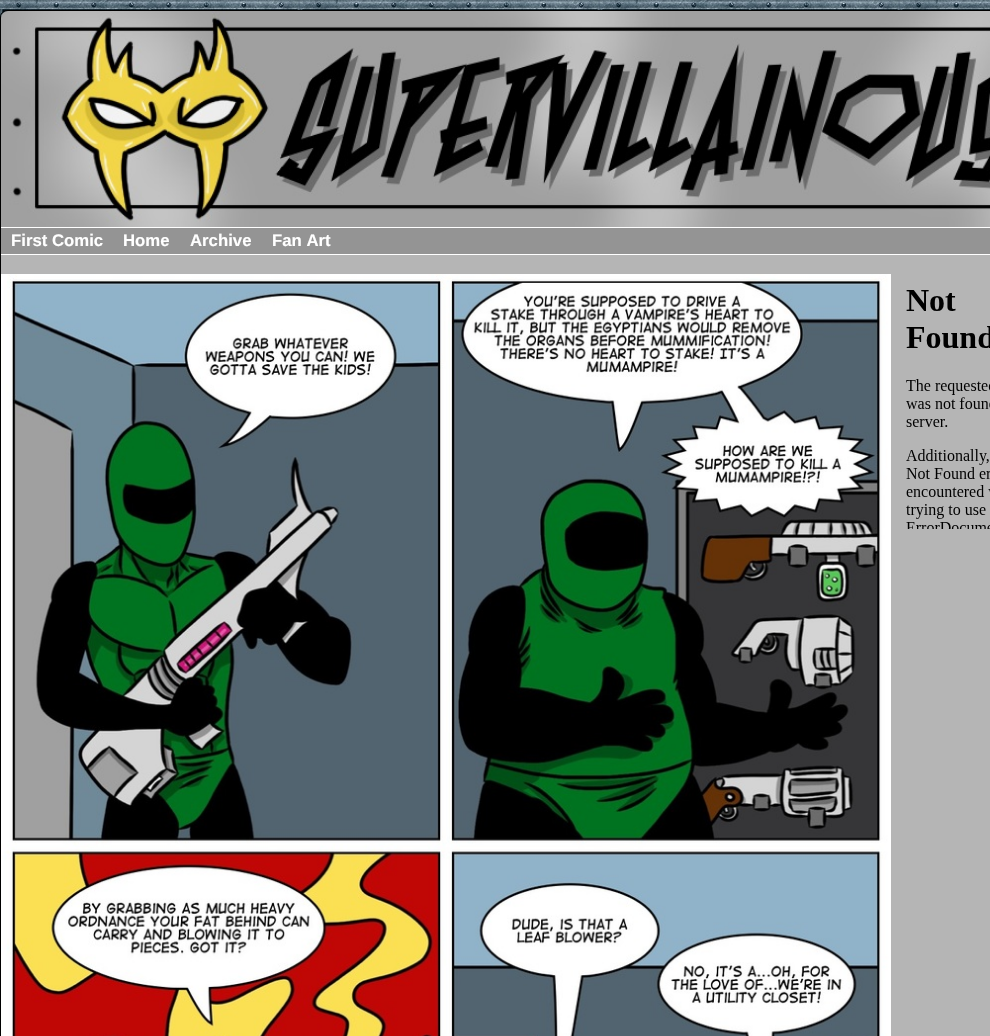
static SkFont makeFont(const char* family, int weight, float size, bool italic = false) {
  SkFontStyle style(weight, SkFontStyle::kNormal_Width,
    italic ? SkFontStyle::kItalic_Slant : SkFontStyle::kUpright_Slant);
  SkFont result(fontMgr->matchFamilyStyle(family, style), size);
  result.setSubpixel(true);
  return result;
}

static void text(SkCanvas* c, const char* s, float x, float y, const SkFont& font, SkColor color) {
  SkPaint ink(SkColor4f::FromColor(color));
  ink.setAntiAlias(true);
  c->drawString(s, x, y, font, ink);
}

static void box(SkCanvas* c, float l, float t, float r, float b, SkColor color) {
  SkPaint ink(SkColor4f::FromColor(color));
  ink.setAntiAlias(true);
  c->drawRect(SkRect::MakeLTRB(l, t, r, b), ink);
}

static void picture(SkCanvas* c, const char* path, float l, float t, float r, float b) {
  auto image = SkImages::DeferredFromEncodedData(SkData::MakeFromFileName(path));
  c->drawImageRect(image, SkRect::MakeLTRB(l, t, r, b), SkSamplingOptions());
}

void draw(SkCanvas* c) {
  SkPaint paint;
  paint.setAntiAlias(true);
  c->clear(0xffffffff);
  picture(c, "img_01.png", 0, 0, 990, 18);
  paint.setStyle(SkPaint::kStroke_Style);
  paint.setStrokeWidth(1);
  paint.setColor(0xff000000);
  c->drawRoundRect(SkRect::MakeLTRB(0.5f, 10.5f, 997.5f, 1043.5f), 6.5f, 6.5f, paint);
  picture(c, "img_02.png", 1, 11, 990, 227);
  box(c, 1, 228, 990, 254, 0xff949494);
  SkFont face1 = makeFont("Liberation Sans", 700, 16.75f);
  text(c, "First Comic", 11, 246, face1, 0xffffffff);
  text(c, "Home", 123, 246, face1, 0xffffffff);
  text(c, "Archive", 190, 246, face1, 0xffffffff);
  text(c, "Fan Art", 272, 246, face1, 0xffffffff);
  box(c, 1, 255, 990, 1036, 0xffb5b5b5);
  picture(c, "img_03.png", 1, 274, 891, 1036);
  picture(c, "img_04.png", 906, 290, 990, 529);
}
